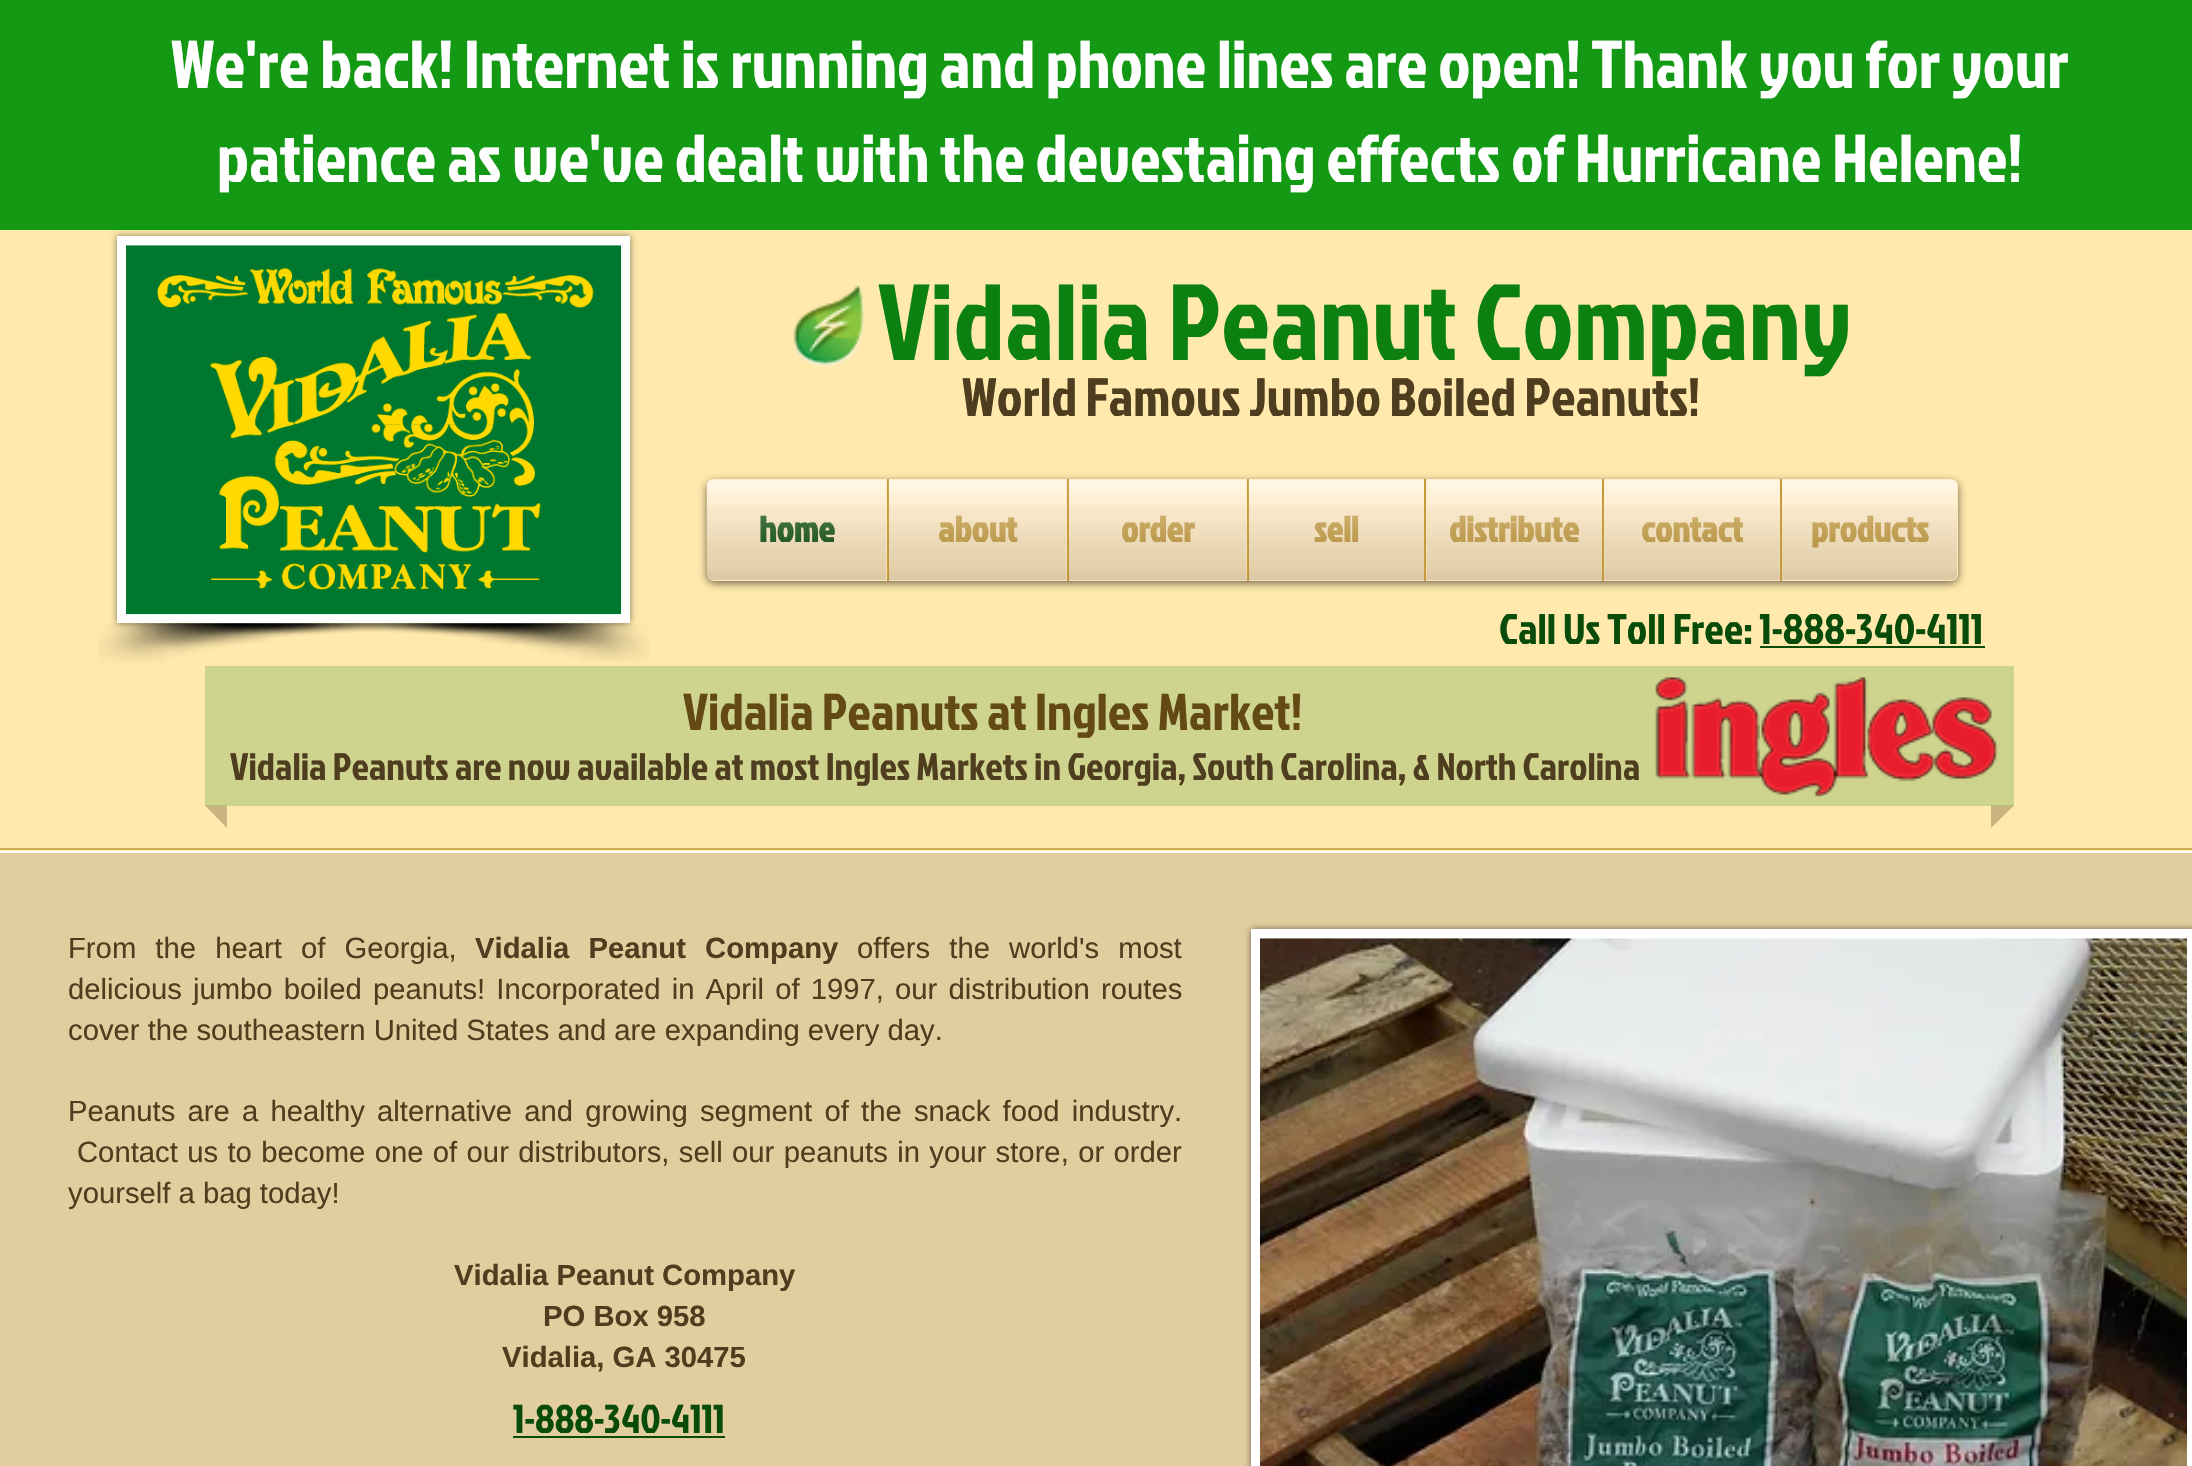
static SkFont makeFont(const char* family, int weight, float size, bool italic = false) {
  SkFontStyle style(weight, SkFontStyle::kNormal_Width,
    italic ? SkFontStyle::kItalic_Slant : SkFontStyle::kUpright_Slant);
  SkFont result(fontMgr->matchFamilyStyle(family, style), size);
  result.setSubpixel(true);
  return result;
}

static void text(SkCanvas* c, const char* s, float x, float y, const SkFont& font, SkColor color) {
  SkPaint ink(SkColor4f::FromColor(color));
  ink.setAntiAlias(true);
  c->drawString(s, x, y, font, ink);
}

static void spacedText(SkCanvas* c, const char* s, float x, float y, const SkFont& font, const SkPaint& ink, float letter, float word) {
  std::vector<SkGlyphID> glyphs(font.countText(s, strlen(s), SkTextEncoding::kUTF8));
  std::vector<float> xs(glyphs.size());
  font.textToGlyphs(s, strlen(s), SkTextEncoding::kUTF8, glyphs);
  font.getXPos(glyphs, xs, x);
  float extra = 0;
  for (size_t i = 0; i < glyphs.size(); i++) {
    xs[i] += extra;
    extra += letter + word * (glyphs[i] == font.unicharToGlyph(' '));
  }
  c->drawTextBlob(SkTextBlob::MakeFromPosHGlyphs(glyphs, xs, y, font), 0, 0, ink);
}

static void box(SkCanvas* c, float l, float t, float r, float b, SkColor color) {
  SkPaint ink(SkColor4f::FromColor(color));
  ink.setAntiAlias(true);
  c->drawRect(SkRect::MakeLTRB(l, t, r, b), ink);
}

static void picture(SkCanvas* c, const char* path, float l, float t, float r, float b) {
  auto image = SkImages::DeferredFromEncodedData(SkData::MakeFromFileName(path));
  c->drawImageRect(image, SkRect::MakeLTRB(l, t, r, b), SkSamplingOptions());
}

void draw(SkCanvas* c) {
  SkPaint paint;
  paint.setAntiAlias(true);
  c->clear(0xffe2cd9e);
  box(c, 0, 0, 2192, 230, 0xff139913);
  SkFont face1 = makeFont("Jockey One", 400, 67.5f);
  text(c, "We're back! Internet is running and phone lines are open! Thank you for your", 171, 88, face1, 0xffffffff);
  text(c, "patience as we've dealt with the devestaing effects of Hurricane Helene!", 217, 182, face1, 0xffffffff);
  box(c, 0, 230, 2192, 851, 0xffffe9ac);
  paint.setColor(0x80000000);
  paint.setMaskFilter(SkMaskFilter::MakeBlur(kNormal_SkBlurStyle, 3.5f));
  c->drawRect(SkRect::MakeLTRB(117, 236, 630, 623), paint);
  paint.setMaskFilter(nullptr);
  box(c, 117, 236, 630, 623, 0xffffffff);
  picture(c, "img_01.png", 126, 245, 621, 615);
  picture(c, "img_02.png", 98, 623, 443, 663);
  picture(c, "img_03.png", 333, 623, 649, 662);
  picture(c, "img_04.png", 793, 285, 865, 367);
  SkFont face2 = makeFont("Jockey One", 400, 108);
  text(c, "Vidalia Peanut Company", 878, 360, face2, 0xff0c8111);
  SkFont face3 = makeFont("Jockey One", 400, 54);
  text(c, "World Famous Jumbo Boiled Peanuts!", 962, 416, face3, 0xff4e3d1e);
  paint.setColor(0x99000000);
  paint.setMaskFilter(SkMaskFilter::MakeBlur(kNormal_SkBlurStyle, 4.5f));
  c->drawRoundRect(SkRect::MakeLTRB(707, 482, 1958, 583), 7, 7, paint);
  paint.setMaskFilter(nullptr);
  picture(c, "img_05.png", 706, 479, 1958, 551);
  picture(c, "img_06.png", 707, 574, 711, 580);
  paint.setColor(0xffffe9bf);
  c->drawPath(SkPathBuilder().moveTo(714, 479).lineTo(887, 479).lineTo(887, 581).lineTo(714, 581).cubicTo(710, 581, 707, 578, 707, 574).lineTo(707, 486).cubicTo(707, 482, 710, 479, 714, 479).close().detach(), paint);
  SkFont face4 = makeFont("Jockey One", 700, 36);
  text(c, "home", 759, 542, face4, 0xff094c09);
  picture(c, "img_07.png", 706, 479, 887, 562);
  picture(c, "img_08.png", 707, 505, 887, 580);
  box(c, 889, 479, 1067, 581, 0xffffe9bf);
  box(c, 887, 479, 889, 581, 0xffc59b3c);
  text(c, "about", 938, 542, face4, 0xffc59b3c);
  picture(c, "img_09.png", 888, 479, 1067, 562);
  picture(c, "img_10.png", 888, 505, 1067, 581);
  box(c, 1069, 479, 1247, 581, 0xffffe9bf);
  box(c, 1067, 479, 1069, 581, 0xffc59b3c);
  text(c, "order", 1121, 542, face4, 0xffc59b3c);
  picture(c, "img_11.png", 1068, 479, 1247, 562);
  picture(c, "img_12.png", 1068, 505, 1247, 581);
  box(c, 1249, 479, 1424, 581, 0xffffe9bf);
  box(c, 1247, 479, 1249, 581, 0xffc59b3c);
  text(c, "sell", 1314, 542, face4, 0xffc59b3c);
  picture(c, "img_13.png", 1248, 479, 1424, 562);
  picture(c, "img_14.png", 1248, 505, 1424, 581);
  box(c, 1426, 479, 1602, 581, 0xffffe9bf);
  box(c, 1424, 479, 1426, 581, 0xffc59b3c);
  text(c, "distribute", 1449, 542, face4, 0xffc59b3c);
  picture(c, "img_15.png", 1426, 479, 1602, 562);
  picture(c, "img_16.png", 1426, 505, 1602, 581);
  box(c, 1604, 479, 1780, 581, 0xffffe9bf);
  box(c, 1602, 479, 1604, 581, 0xffc59b3c);
  text(c, "contact", 1641, 542, face4, 0xffc59b3c);
  picture(c, "img_17.png", 1604, 479, 1780, 562);
  picture(c, "img_18.png", 1604, 505, 1780, 581);
  c->drawPath(SkPathBuilder().moveTo(1780, 479).lineTo(1951, 479).cubicTo(1955, 479, 1958, 482, 1958, 486).lineTo(1958, 574).cubicTo(1958, 578, 1955, 581, 1951, 581).lineTo(1780, 581).close().detach(), paint);
  box(c, 1780, 479, 1782, 581, 0xffc59b3c);
  text(c, "products", 1811, 542, face4, 0xffc59b3c);
  picture(c, "img_19.png", 1782, 479, 1958, 562);
  picture(c, "img_20.png", 1782, 505, 1957, 580);
  SkFont face5 = makeFont("Jockey One", 400, 42.75f);
  text(c, "Call Us Toll Free: 1-888-340-4111", 1499, 644, face5, 0xff094c09);
  box(c, 1760, 646, 1985, 648, 0xff094c09);
  paint.setColor(0xffcab581);
  c->drawPath(SkPathBuilder().moveTo(205, 805.5f).lineTo(227, 805.5f).lineTo(227, 828).close().detach(), paint);
  c->drawPath(SkPathBuilder().moveTo(1991, 805.5f).lineTo(2014, 805.5f).lineTo(1991, 828).close().detach(), paint);
  box(c, 205, 666, 2014, 806, 0x330c8111);
  SkFont face6 = makeFont("Jockey One", 400, 51.75f);
  text(c, "Vidalia Peanuts at Ingles Market!", 683, 730, face6, 0xff634a14);
  picture(c, "img_21.png", 1655, 677, 1998, 797);
  SkFont face7 = makeFont("Jockey One", 400, 38.25f);
  text(c, "Vidalia Peanuts are now available at most Ingles Markets in Georgia, South Carolina, & North Carolina", 230, 780, face7, 0xff4e3d1e);
  box(c, 0, 848, 2192, 850, 0xffd4af58);
  box(c, 0, 851, 2192, 853, 0xffffffff);
  SkFont face8 = makeFont("Liberation Sans", 400, 29.25f);
  paint.setColor(0xff4e3d1e);
  spacedText(c, "From the heart of Georgia,", 68, 958, face8, paint, 0, 11);
  SkFont face9 = makeFont("Liberation Sans", 700, 29.25f);
  spacedText(c, "Vidalia Peanut Company", 475, 958, face9, paint, 0, 11);
  spacedText(c, "offers the world's most", 857, 958, face8, paint, 0, 11);
  spacedText(c, "delicious jumbo boiled peanuts! Incorporated in April of 1997, our distribution routes", 68, 999, face8, paint, 0, 3);
  text(c, "cover the southeastern United States and are expanding every day.", 68, 1040, face8, 0xff4e3d1e);
  spacedText(c, "Peanuts are a healthy alternative and growing segment of the snack food industry.", 68, 1121, face8, paint, 0, 4.1f);
  spacedText(c, "Contact us to become one of our distributors, sell our peanuts in your store, or order", 77, 1162, face8, paint, 0, 1.25f);
  text(c, "yourself a bag today!", 68, 1203, face8, 0xff4e3d1e);
  text(c, "Vidalia Peanut Company", 454, 1285, face9, 0xff4e3d1e);
  text(c, "PO Box 958", 543, 1326, face9, 0xff4e3d1e);
  text(c, "Vidalia, GA 30475", 502, 1367, face9, 0xff4e3d1e);
  paint.setColor(0x80000000);
  paint.setMaskFilter(SkMaskFilter::MakeBlur(kNormal_SkBlurStyle, 3.5f));
  c->drawRect(SkRect::MakeLTRB(1251, 929, 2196, 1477), paint);
  paint.setMaskFilter(nullptr);
  box(c, 1251, 929, 2192, 1466, 0xffffffff);
  picture(c, "img_22.png", 1260, 938, 2187, 1466);
  SkFont face10 = makeFont("Jockey One", 400, 40.5f);
  text(c, "1-888-340-4111", 513, 1433, face10, 0xff094c09);
  box(c, 513, 1436, 725, 1438, 0xff094c09);
}
